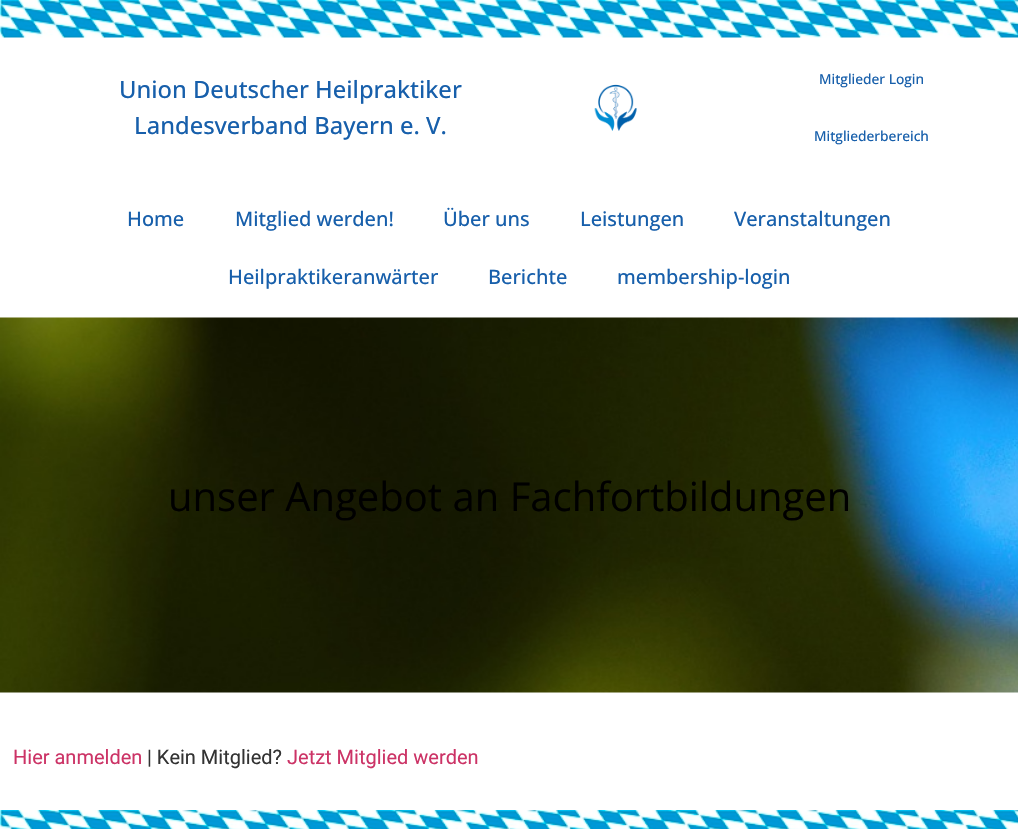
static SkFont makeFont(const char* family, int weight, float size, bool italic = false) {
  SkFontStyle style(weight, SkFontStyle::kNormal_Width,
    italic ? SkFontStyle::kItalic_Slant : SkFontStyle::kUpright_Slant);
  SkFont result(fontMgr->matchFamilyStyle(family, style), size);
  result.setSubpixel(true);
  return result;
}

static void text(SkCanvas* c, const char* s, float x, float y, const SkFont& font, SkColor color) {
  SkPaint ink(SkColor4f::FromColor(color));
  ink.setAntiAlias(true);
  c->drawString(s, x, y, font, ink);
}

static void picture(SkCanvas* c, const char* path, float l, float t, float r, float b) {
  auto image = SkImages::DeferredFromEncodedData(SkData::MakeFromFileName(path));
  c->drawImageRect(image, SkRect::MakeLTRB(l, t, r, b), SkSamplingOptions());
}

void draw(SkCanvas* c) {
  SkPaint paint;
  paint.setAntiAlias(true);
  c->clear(0xffffffff);
  picture(c, "img_01.png", 0, 0, 1018, 38);
  SkFont face1 = makeFont("Open Sans", 500, 23.75f);
  text(c, "Union Deutscher Heilpraktiker", 119, 98, face1, 0xff175fab);
  text(c, "Landesverband Bayern e. V.", 134, 134, face1, 0xff175fab);
  picture(c, "img_02.png", 594, 84, 637, 131);
  SkFont face2 = makeFont("Open Sans", 500, 13.75f);
  text(c, "Mitglieder Login", 819, 84, face2, 0xff175fab);
  text(c, "Mitgliederbereich", 814, 141, face2, 0xff175fab);
  SkFont face3 = makeFont("Open Sans", 500, 20);
  text(c, "Home", 127, 226, face3, 0xff175fab);
  text(c, "Mitglied werden!", 235, 226, face3, 0xff175fab);
  text(c, "Über uns", 443, 226, face3, 0xff175fab);
  text(c, "Leistungen", 580, 226, face3, 0xff175fab);
  text(c, "Veranstaltungen", 734, 226, face3, 0xff175fab);
  text(c, "Heilpraktikeranwärter", 228, 284, face3, 0xff175fab);
  text(c, "Berichte", 488, 284, face3, 0xff175fab);
  text(c, "membership-login", 617, 284, face3, 0xff175fab);
  picture(c, "img_03.png", 0, 317, 1018, 693);
  SkFont face4 = makeFont("Open Sans", 400, 40);
  text(c, "unser Angebot an Fachfortbildungen", 168, 511, face4, 0xff000000);
  SkFont face5 = makeFont("Roboto", 400, 20);
  text(c, "Hier anmelden", 13, 764, face5, 0xffcc3366);
  text(c, "| Kein Mitglied?", 147, 764, face5, 0xff333333);
  text(c, "Jetzt Mitglied werden", 287, 764, face5, 0xffcc3366);
  picture(c, "img_04.png", 0, 810, 1018, 829);
}
